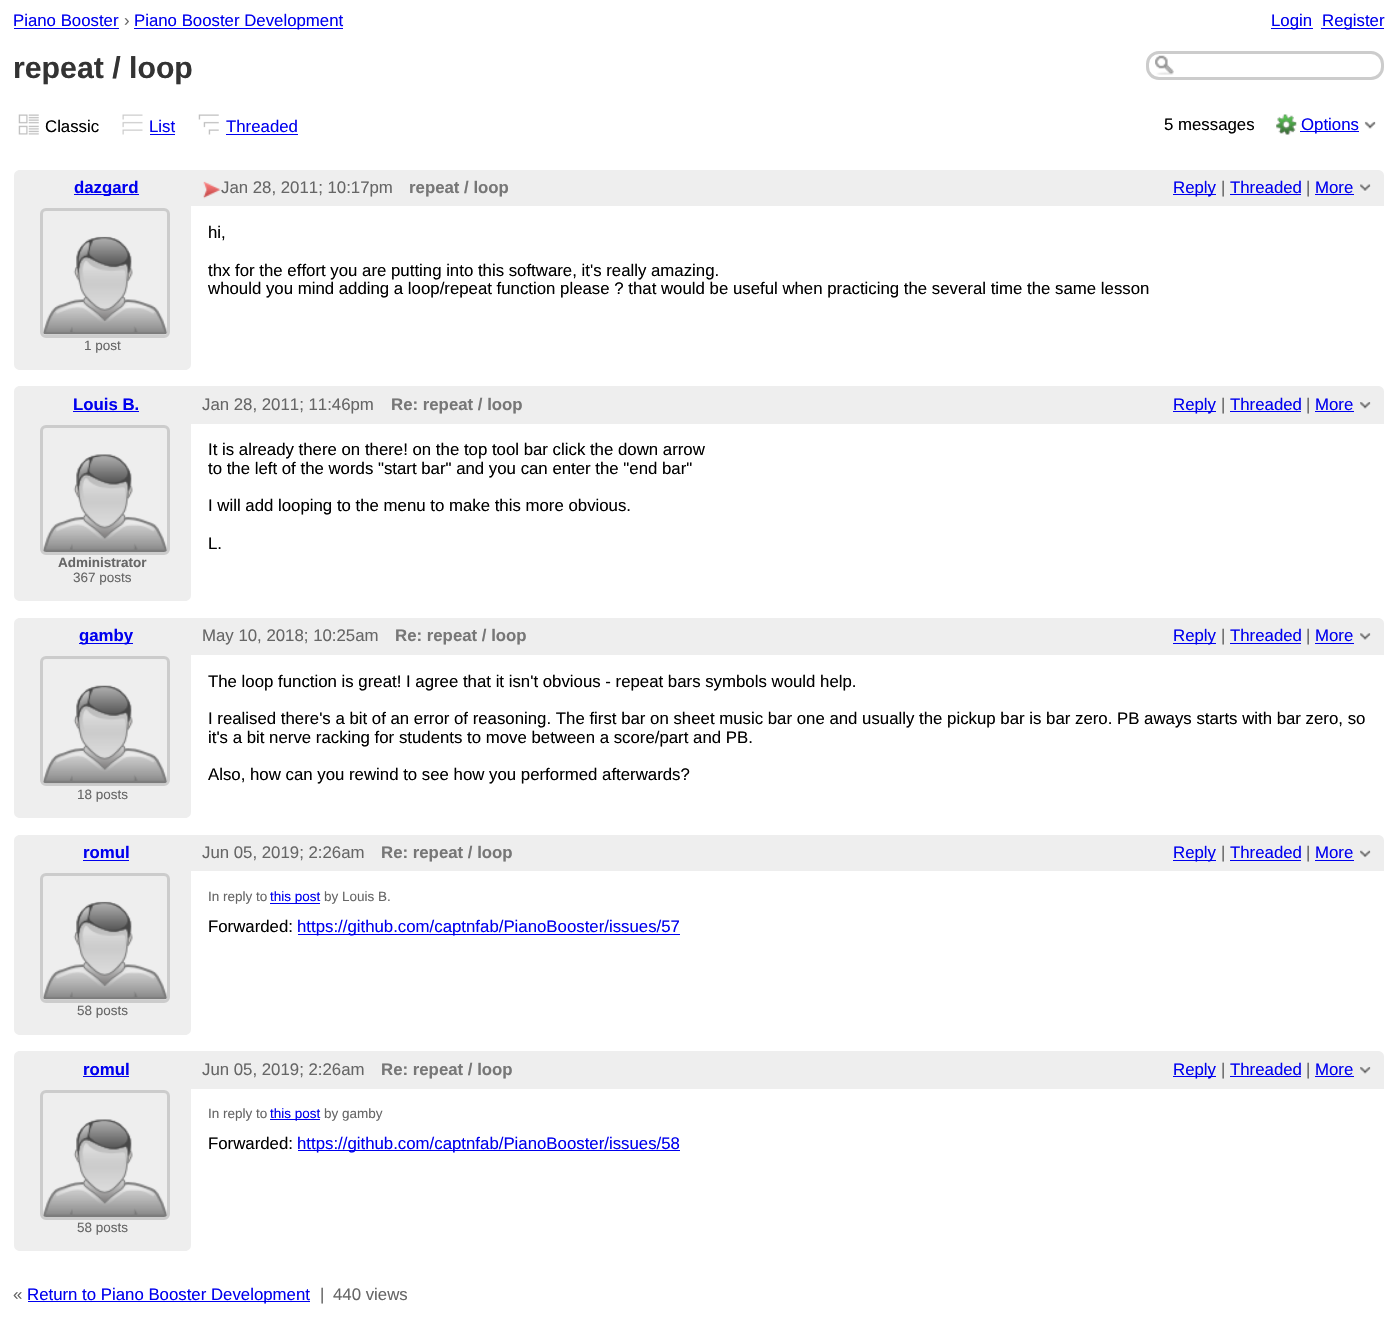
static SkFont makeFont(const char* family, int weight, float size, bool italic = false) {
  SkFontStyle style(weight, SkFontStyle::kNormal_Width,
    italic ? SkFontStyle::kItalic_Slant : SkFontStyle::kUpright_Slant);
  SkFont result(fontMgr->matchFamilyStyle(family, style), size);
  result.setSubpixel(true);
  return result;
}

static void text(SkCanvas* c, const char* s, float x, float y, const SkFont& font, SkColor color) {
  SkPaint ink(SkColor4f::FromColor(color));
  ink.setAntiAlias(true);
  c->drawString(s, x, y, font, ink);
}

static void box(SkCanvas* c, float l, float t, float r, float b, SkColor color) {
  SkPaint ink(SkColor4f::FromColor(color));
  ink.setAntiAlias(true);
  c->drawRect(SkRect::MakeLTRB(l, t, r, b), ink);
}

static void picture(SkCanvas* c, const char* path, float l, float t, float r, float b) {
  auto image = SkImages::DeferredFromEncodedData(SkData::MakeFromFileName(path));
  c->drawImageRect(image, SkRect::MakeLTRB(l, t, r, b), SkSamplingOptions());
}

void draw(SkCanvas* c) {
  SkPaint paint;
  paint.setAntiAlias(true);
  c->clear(0xffffffff);
  SkFont face1 = makeFont("Liberation Sans", 400, 16.8f);
  text(c, "Piano Booster", 13, 26, face1, 0xff0000ee);
  box(c, 14, 28, 119, 29, 0xff0000ee);
  text(c, "›", 124, 26, face1, 0xff666666);
  box(c, 134, 28, 343, 29, 0xff0000ee);
  text(c, "Piano Booster Development", 134, 26, face1, 0xff0000ee);
  box(c, 1271, 28, 1313, 29, 0xff0000ee);
  text(c, "Login", 1271, 26, face1, 0xff0000ee);
  box(c, 1321, 28, 1384, 29, 0xff0000ee);
  text(c, "Register", 1322, 26, face1, 0xff0000ee);
  SkFont face2 = makeFont("Liberation Sans", 700, 30.25f);
  text(c, "repeat / loop", 13, 78, face2, 0xff333333);
  picture(c, "img_01.png", 1155, 55, 1174, 75);
  paint.setStyle(SkPaint::kStroke_Style);
  paint.setStrokeWidth(3);
  paint.setColor(0xffcccccc);
  c->drawRoundRect(SkRect::MakeLTRB(1147.5f, 52.5f, 1382.5f, 78.5f), 11.5f, 11.5f, paint);
  picture(c, "img_02.png", 18, 114, 39, 135);
  text(c, "Classic", 45, 132, face1, 0xff000000);
  picture(c, "img_03.png", 122, 114, 143, 135);
  text(c, "List", 149, 132, face1, 0xff0000ee);
  box(c, 150, 134, 175, 135, 0xff0000ee);
  picture(c, "img_04.png", 198, 114, 219, 135);
  text(c, "Threaded", 226, 132, face1, 0xff0000ee);
  box(c, 226, 134, 298, 135, 0xff0000ee);
  text(c, "5 messages", 1164, 130, face1, 0xff000000);
  picture(c, "img_05.png", 1276, 114, 1297, 135);
  box(c, 1300, 131, 1359, 132, 0xff0000ee);
  text(c, "Options", 1301, 130, face1, 0xff0000ee);
  picture(c, "img_06.png", 1364, 121, 1376, 129);
  paint.setStyle(SkPaint::kFill_Style);
  paint.setColor(0xffeeeeee);
  c->drawPath(SkPathBuilder().moveTo(20, 170).lineTo(1378, 170).cubicTo(1381.5f, 170, 1384, 172.5f, 1384, 176).lineTo(1384, 206).lineTo(14, 206).lineTo(14, 176).cubicTo(14, 172.5f, 16.5f, 170, 20, 170).close().detach(), paint);
  box(c, 74, 194, 139, 195, 0xff0000ee);
  c->save();
  c->clipRect(SkRect::MakeLTRB(19, 178, 194, 196));
  SkFont face3 = makeFont("Liberation Sans", 700, 16.8f);
  text(c, "dazgard", 74, 193, face3, 0xff0000ee);
  c->restore();
  picture(c, "img_07.png", 203, 181, 221, 199);
  text(c, "Jan 28, 2011; 10:17pm", 221, 193, face1, 0xff666666);
  text(c, "repeat / loop", 409, 193, face3, 0xff777777);
  box(c, 1173, 194, 1216, 195, 0xff0000ee);
  text(c, "Reply", 1173, 193, face1, 0xff0000ee);
  text(c, "|", 1221, 193, face1, 0xff666666);
  text(c, "Threaded", 1230, 193, face1, 0xff0000ee);
  box(c, 1230, 194, 1301, 195, 0xff0000ee);
  text(c, "|", 1306, 193, face1, 0xff666666);
  text(c, "More", 1315, 193, face1, 0xff0000ee);
  box(c, 1315, 194, 1354, 195, 0xff0000ee);
  picture(c, "img_08.png", 1360, 184, 1371, 192);
  text(c, "hi,", 208, 238, face1, 0xff000000);
  text(c, "thx for the effort you are putting into this software, it's really amazing.", 208, 276, face1, 0xff000000);
  text(c, "whould you mind adding a loop/repeat function please ? that would be useful when practicing the several time the same lesson", 208, 294, face1, 0xff000000);
  c->drawPath(SkPathBuilder().moveTo(14, 206).lineTo(191, 206).lineTo(191, 364).cubicTo(191, 367.5f, 188.5f, 370, 185, 370).lineTo(20, 370).cubicTo(16.5f, 370, 14, 367.5f, 14, 364).close().detach(), paint);
  paint.setStyle(SkPaint::kStroke_Style);
  paint.setColor(0xffcccccc);
  c->drawRoundRect(SkRect::MakeLTRB(41.5f, 209.5f, 168.5f, 336.5f), 4.5f, 4.5f, paint);
  picture(c, "img_09.png", 43, 236, 168, 335);
  SkFont face4 = makeFont("Liberation Sans", 400, 13.5f);
  text(c, "1 post", 84, 350, face4, 0xff666666);
  paint.setStyle(SkPaint::kFill_Style);
  paint.setColor(0xffeeeeee);
  c->drawPath(SkPathBuilder().moveTo(20, 386).lineTo(1378, 386).cubicTo(1381.5f, 386, 1384, 388.5f, 1384, 392).lineTo(1384, 424).lineTo(14, 424).lineTo(14, 392).cubicTo(14, 388.5f, 16.5f, 386, 20, 386).close().detach(), paint);
  text(c, "Louis B.", 73, 410, face3, 0xff0000ee);
  box(c, 73, 411, 139, 412, 0xff0000ee);
  text(c, "Jan 28, 2011; 11:46pm", 202, 410, face1, 0xff666666);
  text(c, "Re: repeat / loop", 391, 410, face3, 0xff777777);
  box(c, 1173, 411, 1216, 412, 0xff0000ee);
  text(c, "Reply", 1173, 410, face1, 0xff0000ee);
  text(c, "|", 1221, 410, face1, 0xff666666);
  text(c, "Threaded", 1230, 410, face1, 0xff0000ee);
  box(c, 1230, 411, 1301, 412, 0xff0000ee);
  text(c, "|", 1306, 410, face1, 0xff666666);
  text(c, "More", 1315, 410, face1, 0xff0000ee);
  box(c, 1315, 411, 1354, 412, 0xff0000ee);
  picture(c, "img_10.png", 1360, 402, 1371, 409);
  text(c, "It is already there on there! on the top tool bar click the down arrow", 208, 455, face1, 0xff000000);
  text(c, "to the left of the words \"start bar\" and you can enter the \"end bar\"", 208, 474, face1, 0xff000000);
  text(c, "I will add looping to the menu to make this more obvious.", 208, 511, face1, 0xff000000);
  text(c, "L.", 208, 549, face1, 0xff000000);
  c->drawPath(SkPathBuilder().moveTo(14, 424).lineTo(191, 424).lineTo(191, 595).cubicTo(191, 598.5f, 188.5f, 601, 185, 601).lineTo(20, 601).cubicTo(16.5f, 601, 14, 598.5f, 14, 595).close().detach(), paint);
  paint.setStyle(SkPaint::kStroke_Style);
  paint.setColor(0xffcccccc);
  c->drawRoundRect(SkRect::MakeLTRB(41.5f, 426.5f, 168.5f, 553.5f), 4.5f, 4.5f, paint);
  picture(c, "img_11.png", 42, 454, 168, 552);
  SkFont face5 = makeFont("Liberation Sans", 700, 13.5f);
  text(c, "Administrator", 58, 567, face5, 0xff666666);
  text(c, "367 posts", 73, 582, face4, 0xff666666);
  paint.setStyle(SkPaint::kFill_Style);
  paint.setColor(0xffeeeeee);
  c->drawPath(SkPathBuilder().moveTo(20, 618).lineTo(1378, 618).cubicTo(1381.5f, 618, 1384, 620.5f, 1384, 624).lineTo(1384, 655).lineTo(14, 655).lineTo(14, 624).cubicTo(14, 620.5f, 16.5f, 618, 20, 618).close().detach(), paint);
  box(c, 79, 643, 133, 644, 0xff0000ee);
  text(c, "gamby", 79, 641, face3, 0xff0000ee);
  text(c, "May 10, 2018; 10:25am", 202, 641, face1, 0xff666666);
  text(c, "Re: repeat / loop", 395, 641, face3, 0xff777777);
  box(c, 1173, 643, 1216, 644, 0xff0000ee);
  text(c, "Reply", 1173, 641, face1, 0xff0000ee);
  text(c, "|", 1221, 641, face1, 0xff666666);
  text(c, "Threaded", 1230, 641, face1, 0xff0000ee);
  box(c, 1230, 643, 1301, 644, 0xff0000ee);
  text(c, "|", 1306, 641, face1, 0xff666666);
  text(c, "More", 1315, 641, face1, 0xff0000ee);
  box(c, 1315, 643, 1354, 644, 0xff0000ee);
  picture(c, "img_12.png", 1360, 633, 1371, 640);
  text(c, "The loop function is great! I agree that it isn't obvious - repeat bars symbols would help.", 208, 687, face1, 0xff000000);
  text(c, "I realised there's a bit of an error of reasoning. The first bar on sheet music bar one and usually the pickup bar is bar zero. PB aways starts with bar zero, so", 208, 724, face1, 0xff000000);
  text(c, "it's a bit nerve racking for students to move between a score/part and PB.", 208, 743, face1, 0xff000000);
  text(c, "Also, how can you rewind to see how you performed afterwards?", 208, 780, face1, 0xff000000);
  c->drawPath(SkPathBuilder().moveTo(14, 655).lineTo(191, 655).lineTo(191, 812).cubicTo(191, 815.5f, 188.5f, 818, 185, 818).lineTo(20, 818).cubicTo(16.5f, 818, 14, 815.5f, 14, 812).close().detach(), paint);
  paint.setStyle(SkPaint::kStroke_Style);
  paint.setColor(0xffcccccc);
  c->drawRoundRect(SkRect::MakeLTRB(41.5f, 657.5f, 168.5f, 784.5f), 4.5f, 4.5f, paint);
  picture(c, "img_13.png", 43, 685, 168, 784);
  text(c, "18 posts", 77, 799, face4, 0xff666666);
  paint.setStyle(SkPaint::kFill_Style);
  paint.setColor(0xffeeeeee);
  c->drawPath(SkPathBuilder().moveTo(20, 835).lineTo(1378, 835).cubicTo(1381.5f, 835, 1384, 837.5f, 1384, 841).lineTo(1384, 871).lineTo(14, 871).lineTo(14, 841).cubicTo(14, 837.5f, 16.5f, 835, 20, 835).close().detach(), paint);
  text(c, "romul", 83, 858, face3, 0xff0000ee);
  box(c, 83, 860, 129, 861, 0xff0000ee);
  text(c, "Jun 05, 2019; 2:26am", 202, 858, face1, 0xff666666);
  text(c, "Re: repeat / loop", 381, 858, face3, 0xff777777);
  box(c, 1173, 860, 1216, 861, 0xff0000ee);
  text(c, "Reply", 1173, 858, face1, 0xff0000ee);
  text(c, "|", 1221, 858, face1, 0xff666666);
  text(c, "Threaded", 1230, 858, face1, 0xff0000ee);
  box(c, 1230, 860, 1301, 861, 0xff0000ee);
  text(c, "|", 1306, 858, face1, 0xff666666);
  text(c, "More", 1315, 858, face1, 0xff0000ee);
  box(c, 1315, 860, 1354, 861, 0xff0000ee);
  picture(c, "img_14.png", 1360, 850, 1371, 858);
  text(c, "In reply to", 208, 901, face4, 0xff666666);
  box(c, 270, 903, 320, 904, 0xff0000ee);
  text(c, "this post", 270, 901, face4, 0xff0000ee);
  text(c, "by Louis B.", 324, 901, face4, 0xff666666);
  text(c, "Forwarded:", 208, 932, face1, 0xff000000);
  box(c, 298, 934, 680, 935, 0xff0000ee);
  text(c, "https://github.com/captnfab/PianoBooster/issues/57", 297, 932, face1, 0xff0000ee);
  c->drawPath(SkPathBuilder().moveTo(14, 871).lineTo(191, 871).lineTo(191, 1029).cubicTo(191, 1032.5f, 188.5f, 1035, 185, 1035).lineTo(20, 1035).cubicTo(16.5f, 1035, 14, 1032.5f, 14, 1029).close().detach(), paint);
  paint.setStyle(SkPaint::kStroke_Style);
  paint.setColor(0xffcccccc);
  c->drawRoundRect(SkRect::MakeLTRB(41.5f, 874.5f, 168.5f, 1001.5f), 4.5f, 4.5f, paint);
  picture(c, "img_09.png", 43, 901, 168, 1000);
  text(c, "58 posts", 77, 1015, face4, 0xff666666);
  paint.setStyle(SkPaint::kFill_Style);
  paint.setColor(0xffeeeeee);
  c->drawPath(SkPathBuilder().moveTo(20, 1051).lineTo(1378, 1051).cubicTo(1381.5f, 1051, 1384, 1053.5f, 1384, 1057).lineTo(1384, 1089).lineTo(14, 1089).lineTo(14, 1057).cubicTo(14, 1053.5f, 16.5f, 1051, 20, 1051).close().detach(), paint);
  text(c, "romul", 83, 1075, face3, 0xff0000ee);
  box(c, 83, 1076, 129, 1077, 0xff0000ee);
  text(c, "Jun 05, 2019; 2:26am", 202, 1075, face1, 0xff666666);
  text(c, "Re: repeat / loop", 381, 1075, face3, 0xff777777);
  box(c, 1173, 1076, 1216, 1077, 0xff0000ee);
  text(c, "Reply", 1173, 1075, face1, 0xff0000ee);
  text(c, "|", 1221, 1075, face1, 0xff666666);
  text(c, "Threaded", 1230, 1075, face1, 0xff0000ee);
  box(c, 1230, 1076, 1301, 1077, 0xff0000ee);
  text(c, "|", 1306, 1075, face1, 0xff666666);
  text(c, "More", 1315, 1075, face1, 0xff0000ee);
  box(c, 1315, 1076, 1354, 1077, 0xff0000ee);
  picture(c, "img_10.png", 1360, 1067, 1371, 1074);
  text(c, "In reply to", 208, 1118, face4, 0xff666666);
  box(c, 270, 1119, 320, 1120, 0xff0000ee);
  text(c, "this post", 270, 1118, face4, 0xff0000ee);
  text(c, "by gamby", 324, 1118, face4, 0xff666666);
  text(c, "Forwarded:", 208, 1149, face1, 0xff000000);
  box(c, 298, 1150, 680, 1151, 0xff0000ee);
  text(c, "https://github.com/captnfab/PianoBooster/issues/58", 297, 1149, face1, 0xff0000ee);
  c->drawPath(SkPathBuilder().moveTo(14, 1089).lineTo(191, 1089).lineTo(191, 1245).cubicTo(191, 1248.5f, 188.5f, 1251, 185, 1251).lineTo(20, 1251).cubicTo(16.5f, 1251, 14, 1248.5f, 14, 1245).close().detach(), paint);
  paint.setStyle(SkPaint::kStroke_Style);
  paint.setColor(0xffcccccc);
  c->drawRoundRect(SkRect::MakeLTRB(41.5f, 1091.5f, 168.5f, 1218.5f), 4.5f, 4.5f, paint);
  picture(c, "img_11.png", 42, 1119, 168, 1217);
  text(c, "58 posts", 77, 1232, face4, 0xff666666);
  text(c, "«", 13, 1300, face1, 0xff666666);
  box(c, 28, 1301, 310, 1302, 0xff0000ee);
  text(c, "Return to Piano Booster Development", 27, 1300, face1, 0xff0000ee);
  text(c, "|", 320, 1300, face1, 0xff666666);
  text(c, "440 views", 333, 1300, face1, 0xff666666);
}
